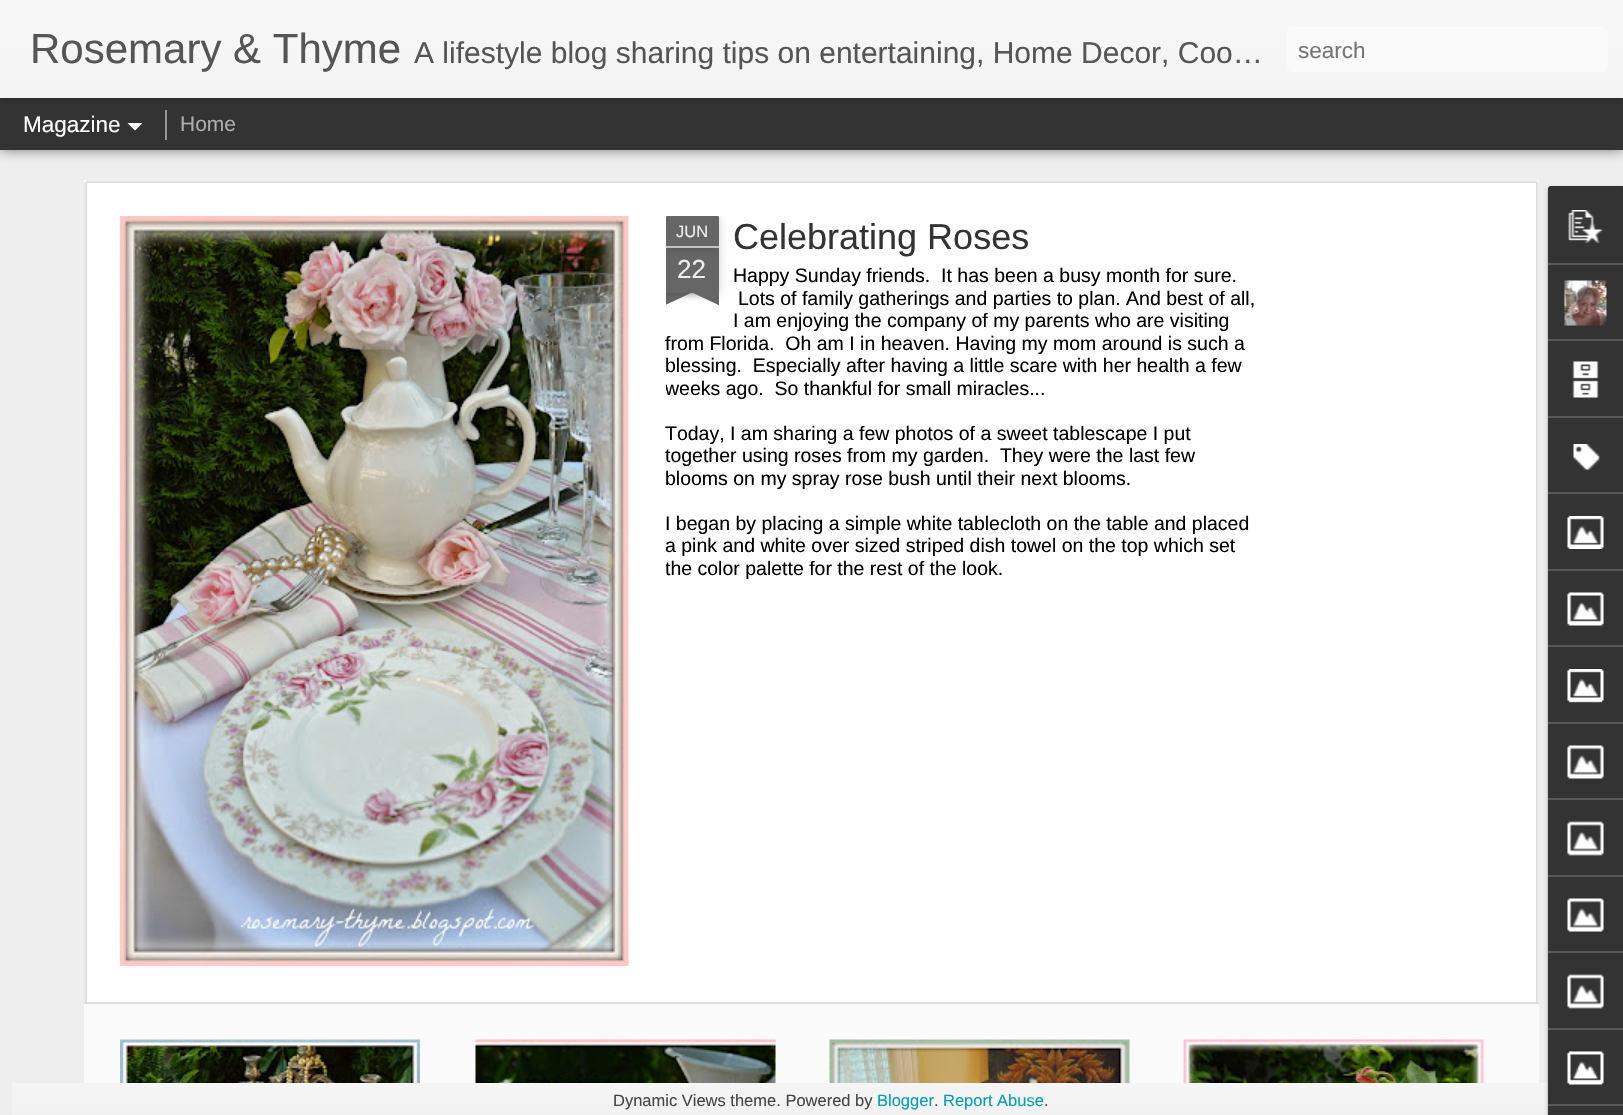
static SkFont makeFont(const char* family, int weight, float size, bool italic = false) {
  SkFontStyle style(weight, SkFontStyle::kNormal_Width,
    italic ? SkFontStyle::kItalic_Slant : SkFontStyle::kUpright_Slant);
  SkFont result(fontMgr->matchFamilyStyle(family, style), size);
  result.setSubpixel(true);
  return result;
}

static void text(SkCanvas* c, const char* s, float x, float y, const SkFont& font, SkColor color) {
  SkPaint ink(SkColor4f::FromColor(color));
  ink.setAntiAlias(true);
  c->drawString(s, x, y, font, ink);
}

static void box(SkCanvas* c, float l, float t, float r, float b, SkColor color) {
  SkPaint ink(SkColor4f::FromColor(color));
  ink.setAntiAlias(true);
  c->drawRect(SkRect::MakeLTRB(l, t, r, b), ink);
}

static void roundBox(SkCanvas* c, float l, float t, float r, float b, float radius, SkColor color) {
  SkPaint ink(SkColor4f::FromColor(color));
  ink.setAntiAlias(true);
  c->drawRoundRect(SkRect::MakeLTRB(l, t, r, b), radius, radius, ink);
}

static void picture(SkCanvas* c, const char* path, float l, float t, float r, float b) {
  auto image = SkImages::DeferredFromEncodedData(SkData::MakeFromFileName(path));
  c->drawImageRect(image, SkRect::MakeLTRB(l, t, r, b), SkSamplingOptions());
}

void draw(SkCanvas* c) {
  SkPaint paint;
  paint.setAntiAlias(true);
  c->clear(0xffeeeeee);
  paint.setColor(0x80000000);
  paint.setMaskFilter(SkMaskFilter::MakeBlur(kNormal_SkBlurStyle, 6));
  c->drawRect(SkRect::MakeLTRB(0, 98, 1623, 150), paint);
  paint.setMaskFilter(nullptr);
  box(c, 0, 98, 1623, 150, 0xff333333);
  box(c, 165, 110, 167, 140, 0xff999999);
  paint.setColor(0x4d000000);
  paint.setMaskFilter(SkMaskFilter::MakeBlur(kNormal_SkBlurStyle, 4));
  c->drawRect(SkRect::MakeLTRB(0, 0, 1623, 98), paint);
  paint.setMaskFilter(nullptr);
  {
    const SkColor colors[] = {0xfff7f7f7, 0xfff4f4f4};
    const float stops[] = {0, 1};
    const SkPoint ends[] = {{0, 0}, {0, 98}};
    paint.setShader(SkGradientShader::MakeLinear(ends, colors, stops, 2, SkTileMode::kClamp));
    paint.setAlpha(255);
  }
  c->drawRect(SkRect::MakeLTRB(0, 0, 1623, 98), paint);
  SkFont face1 = makeFont("Liberation Sans", 400, 42);
  text(c, "Rosemary & Thyme", 30, 63, face1, 0xff555555);
  SkFont face2 = makeFont("Liberation Sans", 400, 30);
  text(c, "A lifestyle blog sharing tips on entertaining, Home Decor, Coo…", 414, 63, face2, 0xff555555);
  roundBox(c, 1287, 27, 1608, 72, 5, 0xfffafafa);
  SkFont face3 = makeFont("Liberation Sans", 400, 22.5f);
  text(c, "search", 1298, 58, face3, 0xff757575);
  text(c, "Magazine", 23, 132, face3, 0xffffffff);
  paint.setShader(nullptr);
  paint.setColor(0xffffffff);
  c->drawPath(SkPathBuilder().moveTo(127.5f, 123).lineTo(142.5f, 123).lineTo(135, 130.5f).close().detach(), paint);
  SkFont face4 = makeFont("Liberation Sans", 400, 21);
  text(c, "Home", 180, 131, face4, 0xffadadad);
  box(c, 84, 180, 1539, 1002, 0xffffffff);
  picture(c, "img_01.png", 84, 180, 1539, 1002);
  picture(c, "img_02.png", 120, 216, 629, 966);
  c->save();
  c->clipRect(SkRect::MakeLTRB(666, 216, 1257, 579));
  paint.setColor(0x33000000);
  paint.setMaskFilter(SkMaskFilter::MakeBlur(kNormal_SkBlurStyle, 4));
  c->drawRect(SkRect::MakeLTRB(666, 248, 719, 293), paint);
  paint.setMaskFilter(nullptr);
  c->restore();
  box(c, 666, 248, 719, 293, 0xff666666);
  c->save();
  c->clipRect(SkRect::MakeLTRB(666, 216, 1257, 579));
  paint.setMaskFilter(SkMaskFilter::MakeBlur(kNormal_SkBlurStyle, 4));
  c->drawRoundRect(SkRect::MakeLTRB(666, 216, 719, 248), 1.5f, 1.5f, paint);
  paint.setMaskFilter(nullptr);
  c->restore();
  paint.setColor(0xff666666);
  c->drawPath(SkPathBuilder().moveTo(667.5f, 216).lineTo(717.5f, 216).cubicTo(718.5f, 216, 719, 216.5f, 719, 217.5f).lineTo(719, 248).lineTo(666, 248).lineTo(666, 217.5f).cubicTo(666, 216.5f, 666.5f, 216, 667.5f, 216).close().detach(), paint);
  box(c, 666, 246, 719, 248, 0xffc2c2c2);
  SkFont face5 = makeFont("Liberation Sans", 400, 16.5f);
  text(c, "JUN", 676, 237, face5, 0xffeeeeee);
  SkFont face6 = makeFont("Liberation Sans", 400, 26);
  text(c, "22", 677, 278, face6, 0xffeeeeee);
  c->save();
  c->clipRect(SkRect::MakeLTRB(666, 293, 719, 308));
  paint.setColor(0x33000000);
  paint.setMaskFilter(SkMaskFilter::MakeBlur(kNormal_SkBlurStyle, 4));
  c->drawRect(SkRect::MakeLTRB(653, 278, 728, 293), paint);
  paint.setMaskFilter(nullptr);
  c->restore();
  c->save();
  c->clipRect(SkRect::MakeLTRB(666, 293, 719, 308));
  paint.setColor(0xff666666);
  c->drawPath(SkPathBuilder().moveTo(652, 294).lineTo(720, 262).lineTo(727, 276).lineTo(659, 308).close().detach(), paint);
  c->restore();
  c->save();
  c->clipRect(SkRect::MakeLTRB(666, 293, 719, 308));
  paint.setColor(0x33000000);
  paint.setMaskFilter(SkMaskFilter::MakeBlur(kNormal_SkBlurStyle, 4));
  c->drawRect(SkRect::MakeLTRB(657, 278, 732, 293), paint);
  paint.setMaskFilter(nullptr);
  c->restore();
  c->save();
  c->clipRect(SkRect::MakeLTRB(666, 293, 719, 308));
  paint.setColor(0xff666666);
  c->drawPath(SkPathBuilder().moveTo(663, 262).lineTo(731, 294).lineTo(725, 308).lineTo(657, 276).close().detach(), paint);
  c->restore();
  SkFont face7 = makeFont("Liberation Sans", 400, 36);
  text(c, "Celebrating Roses", 733, 249, face7, 0xff333333);
  SkFont face8 = makeFont("Liberation Sans", 400, 19.5f);
  text(c, "Happy Sunday friends.  It has been a busy month for sure.", 733, 282, face8, 0xff000000);
  text(c, "Lots of family gatherings and parties to plan. And best of all,", 738, 305, face8, 0xff000000);
  text(c, "I am enjoying the company of my parents who are visiting", 733, 327, face8, 0xff000000);
  text(c, "from Florida.  Oh am I in heaven. Having my mom around is such a", 665, 350, face8, 0xff000000);
  text(c, "blessing.  Especially after having a little scare with her health a few", 665, 372, face8, 0xff000000);
  c->save();
  c->clipRect(SkRect::MakeLTRB(666, 216, 1257, 579));
  text(c, "weeks ago.  So thankful for small miracles...", 665, 395, face8, 0xff000000);
  c->restore();
  text(c, "Today, I am sharing a few photos of a sweet tablescape I put", 665, 440, face8, 0xff000000);
  text(c, "together using roses from my garden.  They were the last few", 665, 462, face8, 0xff000000);
  text(c, "blooms on my spray rose bush until their next blooms.", 665, 485, face8, 0xff000000);
  text(c, "I began by placing a simple white tablecloth on the table and placed", 665, 530, face8, 0xff000000);
  text(c, "a pink and white over sized striped dish towel on the top which set", 665, 552, face8, 0xff000000);
  c->save();
  c->clipRect(SkRect::MakeLTRB(666, 216, 1257, 579));
  text(c, "the color palette for the rest of the look.", 665, 575, face8, 0xff000000);
  c->restore();
  box(c, 84, 1004, 1539, 1083, 0xfffafafa);
  box(c, 84, 1002, 1539, 1004, 0xffdddddd);
  picture(c, "img_03.png", 120, 1039, 420, 1083);
  picture(c, "img_04.png", 475, 1039, 776, 1083);
  picture(c, "img_05.png", 829, 1039, 1130, 1083);
  picture(c, "img_06.png", 1183, 1039, 1484, 1083);
  {
    const SkColor colors[] = {0xfff5f5f5, 0xfff1f1f1};
    const float stops[] = {0, 1};
    const SkPoint ends[] = {{831, 1083}, {831, 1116}};
    paint.setShader(SkGradientShader::MakeLinear(ends, colors, stops, 2, SkTileMode::kClamp));
    paint.setAlpha(255);
  }
  c->drawRect(SkRect::MakeLTRB(12, 1083, 1548, 1115), paint);
  paint.setShader(nullptr);
  paint.setColor(0x4d000000);
  paint.setMaskFilter(SkMaskFilter::MakeBlur(kNormal_SkBlurStyle, 2));
  c->drawRoundRect(SkRect::MakeLTRB(1548, 188, 1623, 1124), 3, 3, paint);
  paint.setMaskFilter(nullptr);
  paint.setColor(0xff333333);
  c->drawPath(SkPathBuilder().moveTo(1551, 186).lineTo(1623, 186).lineTo(1623, 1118).lineTo(1551, 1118).cubicTo(1549.5f, 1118, 1548, 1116.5f, 1548, 1115).lineTo(1548, 189).cubicTo(1548, 187.5f, 1549.5f, 186, 1551, 186).close().detach(), paint);
  c->drawPath(SkPathBuilder().moveTo(1551, 186).lineTo(1623, 186).lineTo(1623, 263).lineTo(1548, 263).lineTo(1548, 189).cubicTo(1548, 187.5f, 1549.5f, 186, 1551, 186).close().detach(), paint);
  picture(c, "img_07.png", 1568, 210, 1603, 243);
  box(c, 1548, 263, 1623, 265, 0xff585858);
  picture(c, "img_08.png", 1564, 280, 1607, 326);
  box(c, 1548, 339, 1623, 341, 0xff585858);
  picture(c, "img_09.png", 1572, 361, 1599, 398);
  box(c, 1548, 416, 1623, 418, 0xff585858);
  picture(c, "img_10.png", 1573, 444, 1600, 470);
  box(c, 1548, 492, 1623, 494, 0xff585858);
  picture(c, "img_11.png", 1567, 516, 1604, 549);
  box(c, 1548, 569, 1623, 571, 0xff585858);
  picture(c, "img_12.png", 1567, 592, 1604, 626);
  box(c, 1548, 645, 1623, 647, 0xff585858);
  picture(c, "img_13.png", 1567, 669, 1604, 703);
  box(c, 1548, 722, 1623, 724, 0xff585858);
  picture(c, "img_14.png", 1567, 745, 1604, 779);
  box(c, 1548, 798, 1623, 800, 0xff585858);
  picture(c, "img_15.png", 1567, 821, 1604, 856);
  box(c, 1548, 875, 1623, 877, 0xff585858);
  picture(c, "img_16.png", 1567, 898, 1604, 932);
  box(c, 1548, 951, 1623, 953, 0xff585858);
  picture(c, "img_15.png", 1567, 974, 1604, 1009);
  box(c, 1548, 1028, 1623, 1030, 0xff585858);
  picture(c, "img_17.png", 1567, 1051, 1604, 1085);
  box(c, 1548, 1104, 1623, 1106, 0xff585858);
  text(c, "Dynamic Views theme. Powered by", 613, 1106, face5, 0xff444444);
  text(c, "Blogger", 877, 1106, face5, 0xff009eb8);
  text(c, ".", 934, 1106, face5, 0xff444444);
  text(c, "Report Abuse", 943, 1106, face5, 0xff009eb8);
  text(c, ".", 1044, 1106, face5, 0xff444444);
}
